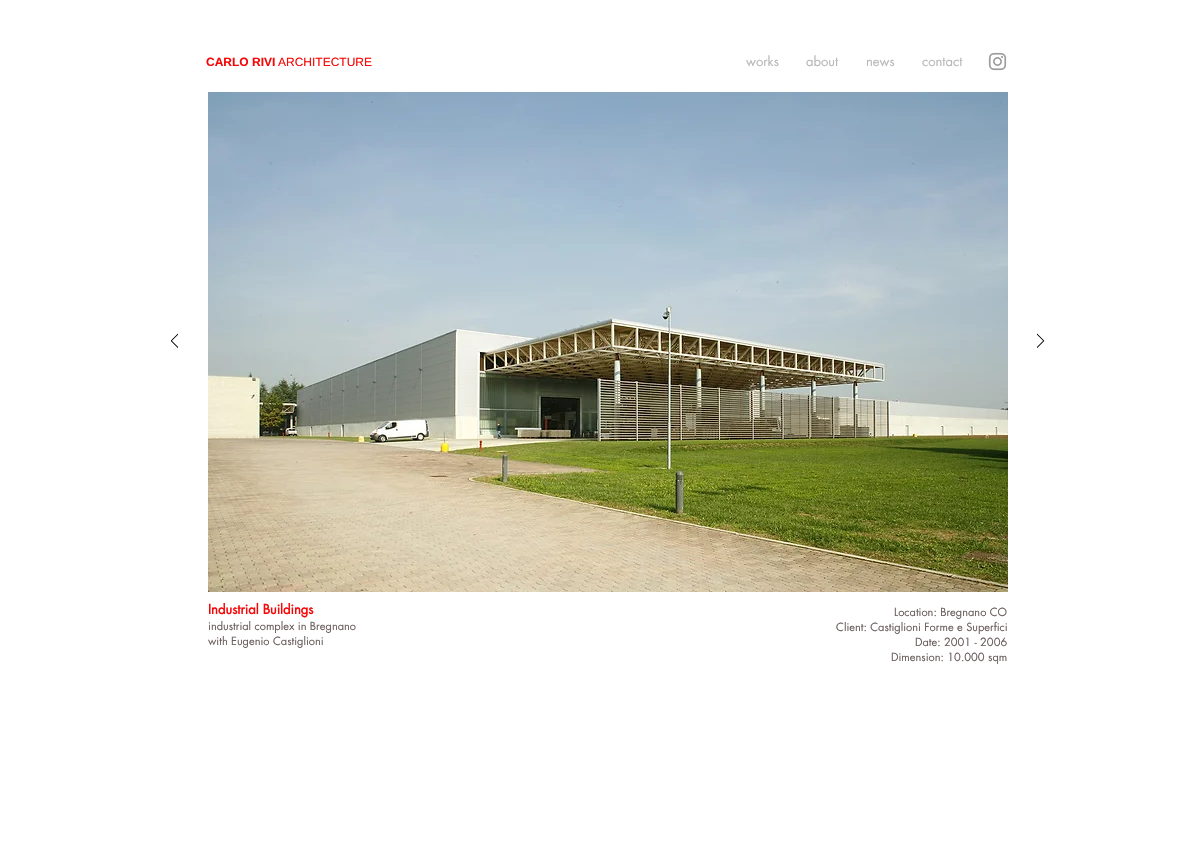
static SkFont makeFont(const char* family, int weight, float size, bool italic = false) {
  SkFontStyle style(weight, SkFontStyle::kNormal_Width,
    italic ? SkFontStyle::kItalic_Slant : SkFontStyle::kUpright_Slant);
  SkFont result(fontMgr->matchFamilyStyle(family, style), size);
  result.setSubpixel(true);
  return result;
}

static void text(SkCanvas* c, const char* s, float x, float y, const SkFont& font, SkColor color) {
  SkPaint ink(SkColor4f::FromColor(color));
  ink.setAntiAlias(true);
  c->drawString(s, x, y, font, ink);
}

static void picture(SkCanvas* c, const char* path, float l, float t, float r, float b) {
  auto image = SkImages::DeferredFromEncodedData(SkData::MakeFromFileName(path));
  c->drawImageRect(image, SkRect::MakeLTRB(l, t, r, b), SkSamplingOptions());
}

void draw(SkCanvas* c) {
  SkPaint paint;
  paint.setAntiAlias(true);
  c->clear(0xffffffff);
  SkFont face1 = makeFont("Liberation Sans", 700, 12);
  text(c, "CARLO RIVI", 206, 66, face1, 0xfff70707);
  SkFont face2 = makeFont("Liberation Sans", 400, 12);
  text(c, "ARCHITECTURE", 278, 66, face2, 0xfff70707);
  SkFont face3 = makeFont("futura", 400, 13);
  text(c, "works", 746, 66, face3, 0xffb8b8b8);
  text(c, "about", 806, 66, face3, 0xffb8b8b8);
  text(c, "news", 866, 66, face3, 0xffb8b8b8);
  text(c, "contact", 922, 66, face3, 0xffb8b8b8);
  picture(c, "img_01.png", 988, 52, 1007, 71);
  picture(c, "img_02.png", 171, 333, 178, 348);
  picture(c, "img_03.png", 208, 92, 1008, 592);
  picture(c, "img_04.png", 1037, 333, 1045, 348);
  SkFont face4 = makeFont("futura", 700, 13);
  text(c, "Industrial Buildings", 208, 614, face4, 0xfff70707);
  SkFont face5 = makeFont("futura", 400, 11);
  text(c, "Location: Bregnano CO", 894, 616, face5, 0xff6b5e5e);
  text(c, "Client: Castiglioni Forme e Superfici", 836, 631, face5, 0xff6b5e5e);
  text(c, "Date: 2001 - 2006", 915, 646, face5, 0xff6b5e5e);
  text(c, "Dimension: 10.000 sqm", 891, 661, face5, 0xff6b5e5e);
  text(c, "industrial complex in Bregnano", 208, 630, face5, 0xff6b5e5e);
  text(c, "with Eugenio Castiglioni", 208, 645, face5, 0xff6b5e5e);
}
